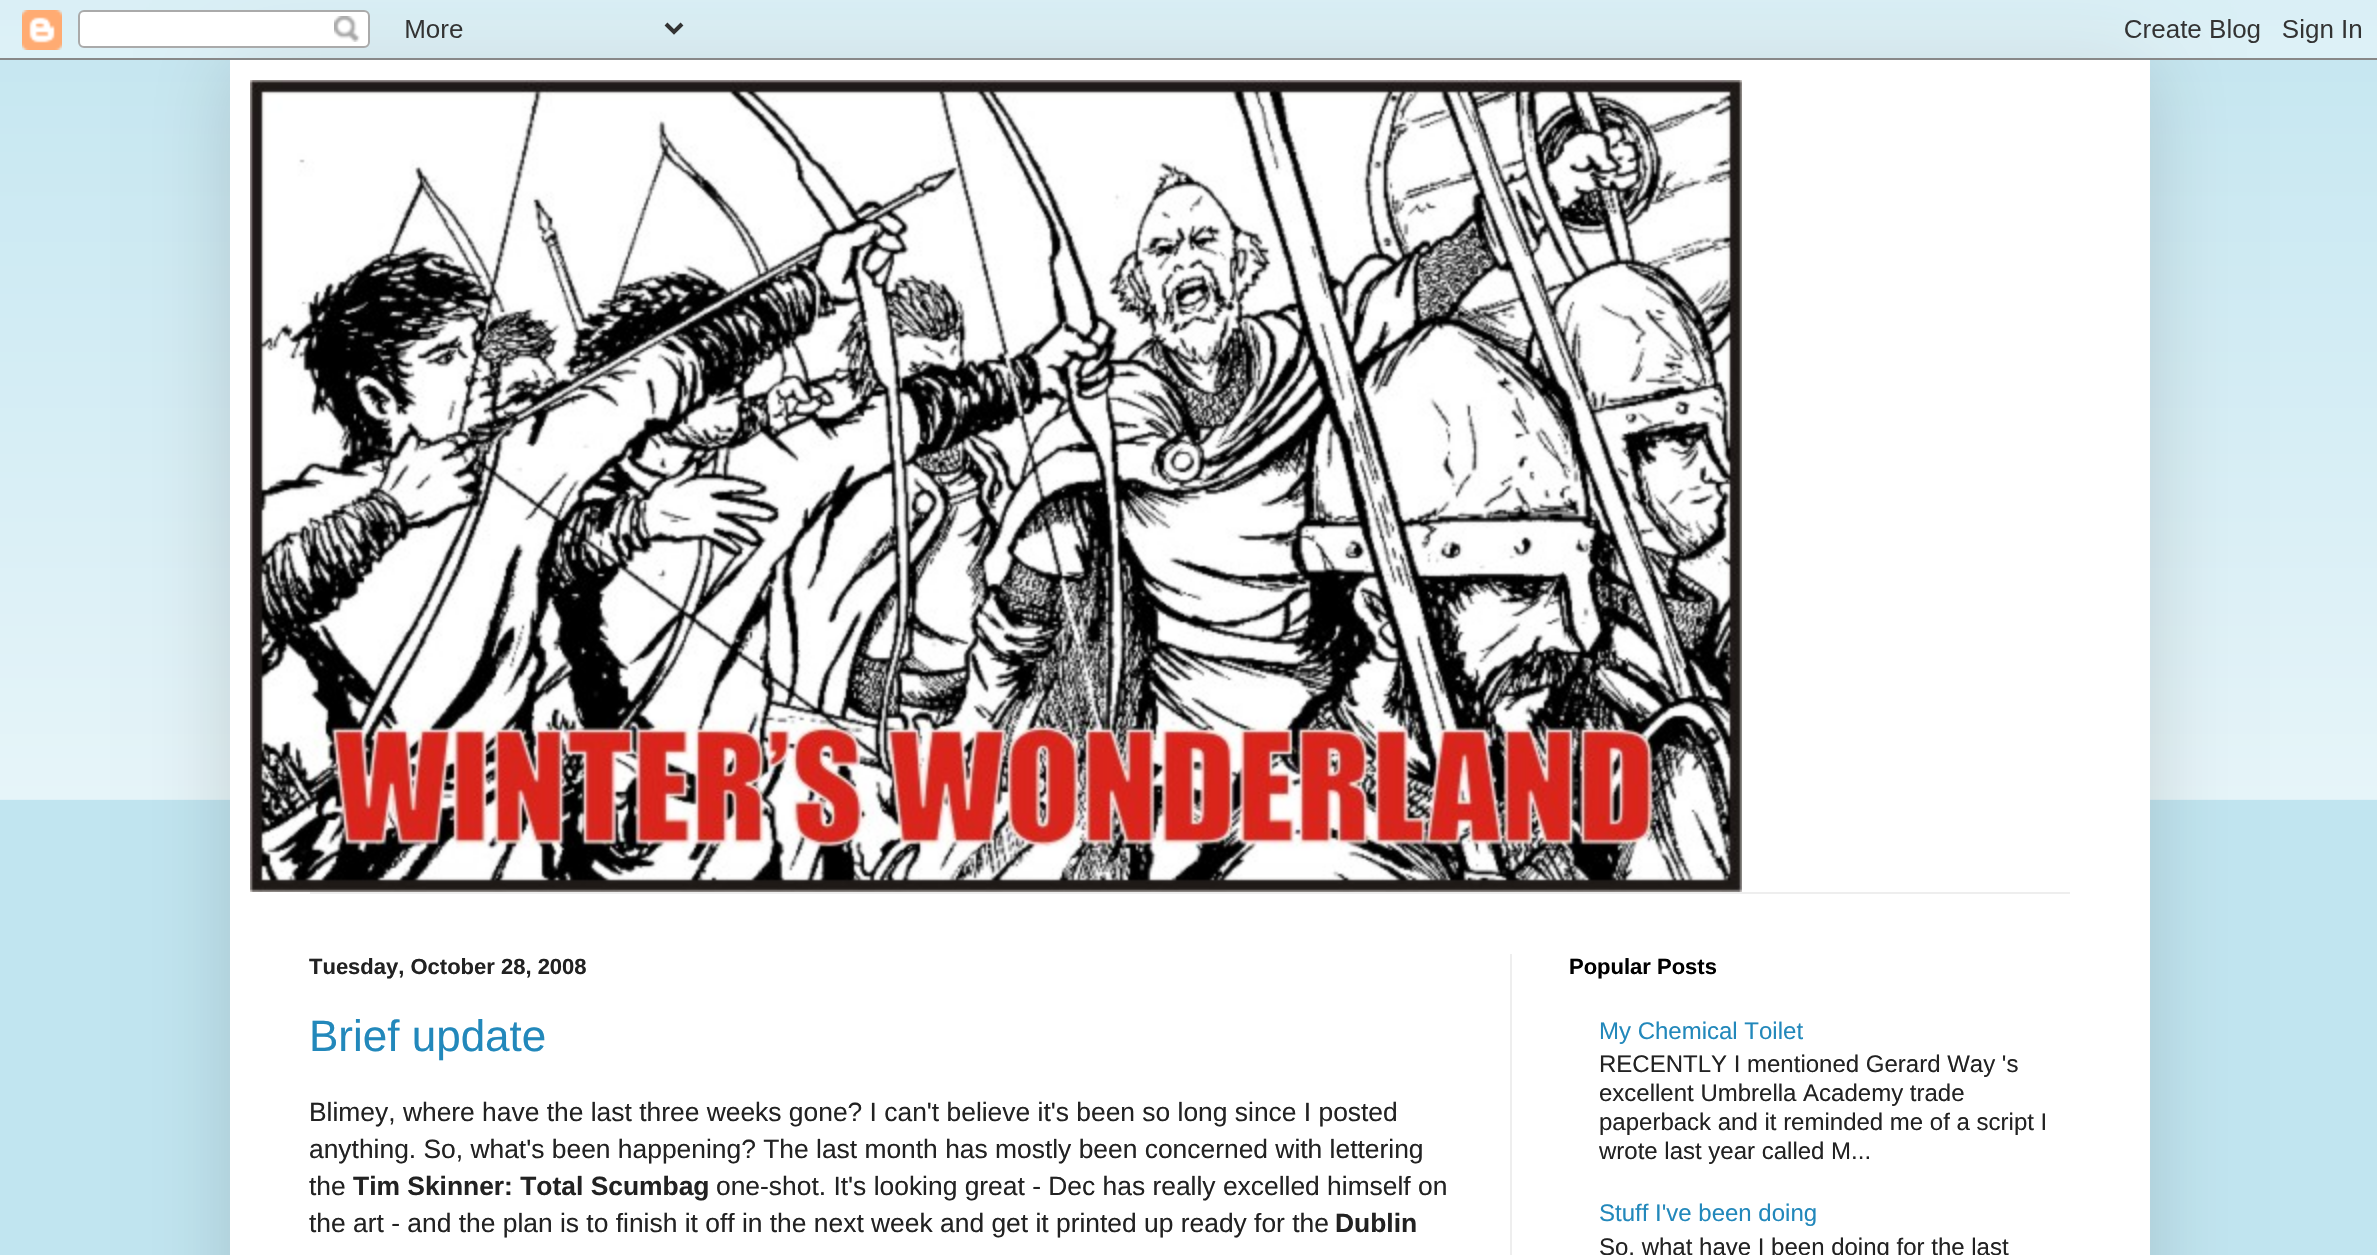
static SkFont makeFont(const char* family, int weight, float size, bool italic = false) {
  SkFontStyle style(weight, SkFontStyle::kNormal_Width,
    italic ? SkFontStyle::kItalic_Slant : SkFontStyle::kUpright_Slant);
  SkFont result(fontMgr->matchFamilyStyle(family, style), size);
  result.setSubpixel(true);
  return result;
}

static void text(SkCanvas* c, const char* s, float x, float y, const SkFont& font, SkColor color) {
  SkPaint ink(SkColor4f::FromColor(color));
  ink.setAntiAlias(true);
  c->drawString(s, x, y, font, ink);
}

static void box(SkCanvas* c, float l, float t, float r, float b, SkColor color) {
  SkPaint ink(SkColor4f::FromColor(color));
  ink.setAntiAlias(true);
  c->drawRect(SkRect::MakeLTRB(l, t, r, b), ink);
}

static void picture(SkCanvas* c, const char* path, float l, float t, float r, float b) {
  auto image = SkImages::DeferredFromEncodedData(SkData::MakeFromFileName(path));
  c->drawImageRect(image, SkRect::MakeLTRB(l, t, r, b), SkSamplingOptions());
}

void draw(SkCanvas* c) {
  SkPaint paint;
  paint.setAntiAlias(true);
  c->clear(0xffc1e5f0);
  picture(c, "img_02.png", 0, 20, 2377, 800);
  paint.setColor(0x26000000);
  paint.setMaskFilter(SkMaskFilter::MakeBlur(kNormal_SkBlurStyle, 40));
  c->drawRect(SkRect::MakeLTRB(230, 60, 2150, 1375), paint);
  paint.setMaskFilter(nullptr);
  picture(c, "img_01.png", 0, 0, 2377, 60);
  box(c, 230, 60, 2150, 1255, 0xffffffff);
  picture(c, "img_03.png", 250, 80, 1742, 892);
  box(c, 310, 892, 2070, 894, 0xffeeeeee);
  box(c, 1510, 954, 1512, 1255, 0xffeeeeee);
  SkFont face1 = makeFont("Liberation Sans", 700, 22);
  text(c, "Tuesday, October 28, 2008", 309, 974, face1, 0xff222222);
  SkFont face2 = makeFont("Liberation Sans", 400, 44);
  text(c, "Brief update", 309, 1051, face2, 0xff2288bb);
  SkFont face3 = makeFont("Liberation Sans", 400, 26.4f);
  text(c, "Blimey, where have the last three weeks gone? I can't believe it's been so long since I posted", 309, 1121, face3, 0xff222222);
  text(c, "anything. So, what's been happening? The last month has mostly been concerned with lettering", 309, 1158, face3, 0xff222222);
  text(c, "the", 309, 1195, face3, 0xff222222);
  SkFont face4 = makeFont("Liberation Sans", 700, 26.4f);
  text(c, "Tim Skinner: Total Scumbag", 353, 1195, face4, 0xff222222);
  text(c, "one-shot. It's looking great - Dec has really excelled himself on", 716, 1195, face3, 0xff222222);
  text(c, "the art - and the plan is to finish it off in the next week and get it printed up ready for the", 309, 1232, face3, 0xff222222);
  text(c, "Dublin", 1335, 1232, face4, 0xff222222);
  text(c, "Popular Posts", 1569, 974, face1, 0xff000000);
  SkFont face5 = makeFont("Liberation Sans", 400, 24);
  text(c, "My Chemical Toilet", 1599, 1039, face5, 0xff2288bb);
  text(c, "RECENTLY I mentioned Gerard Way 's", 1599, 1072, face5, 0xff222222);
  text(c, "excellent Umbrella Academy trade", 1599, 1101, face5, 0xff222222);
  text(c, "paperback and it reminded me of a script I", 1599, 1130, face5, 0xff222222);
  text(c, "wrote last year called M...", 1599, 1159, face5, 0xff222222);
  text(c, "Stuff I've been doing", 1599, 1221, face5, 0xff2288bb);
  text(c, "So, what have I been doing for the last", 1599, 1255, face5, 0xff222222);
}
